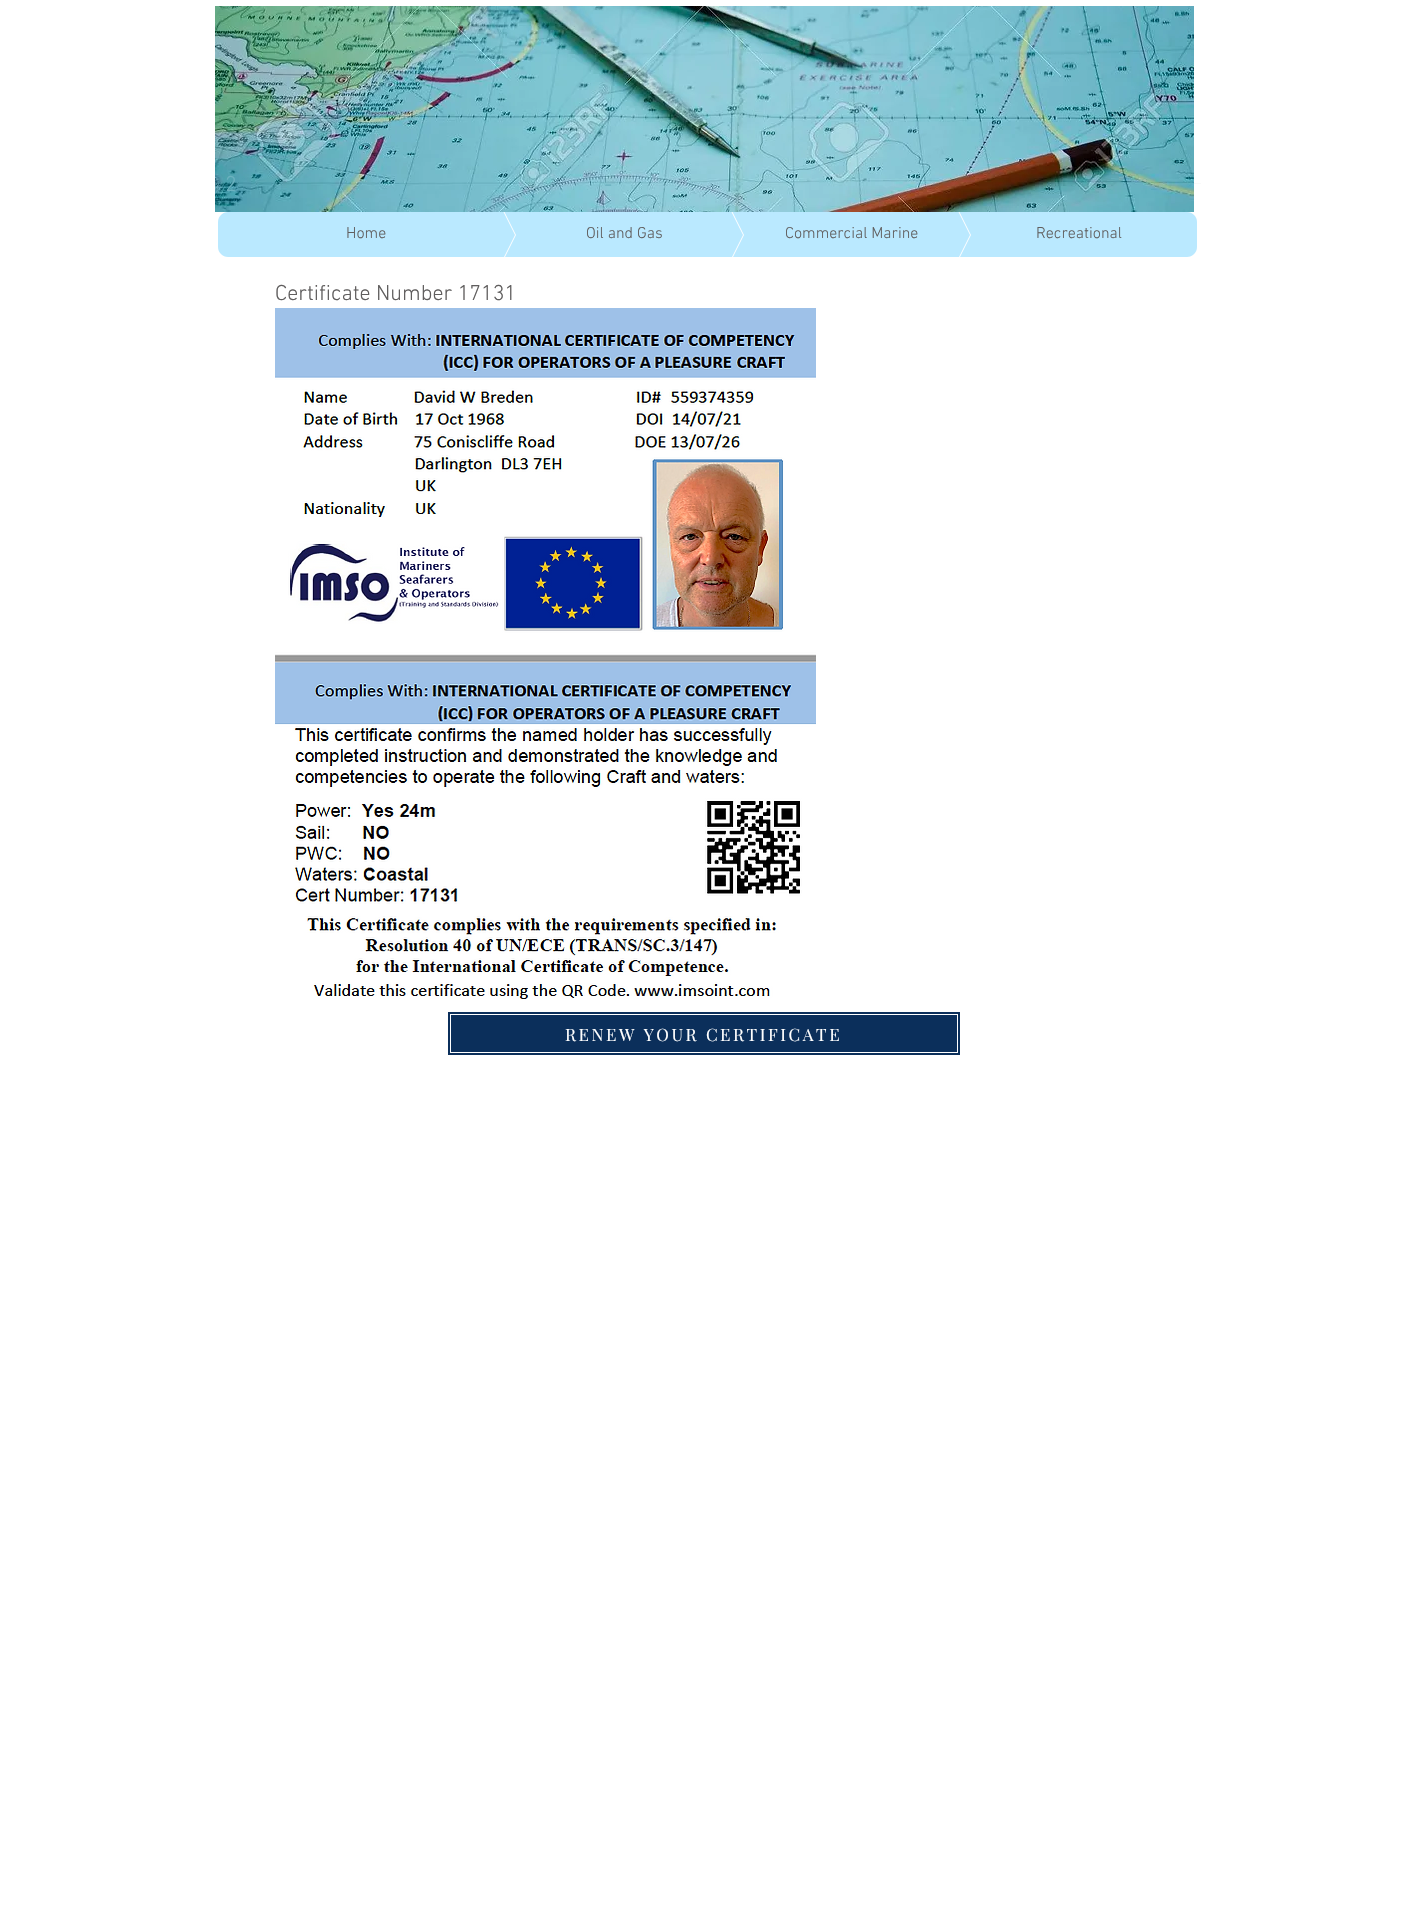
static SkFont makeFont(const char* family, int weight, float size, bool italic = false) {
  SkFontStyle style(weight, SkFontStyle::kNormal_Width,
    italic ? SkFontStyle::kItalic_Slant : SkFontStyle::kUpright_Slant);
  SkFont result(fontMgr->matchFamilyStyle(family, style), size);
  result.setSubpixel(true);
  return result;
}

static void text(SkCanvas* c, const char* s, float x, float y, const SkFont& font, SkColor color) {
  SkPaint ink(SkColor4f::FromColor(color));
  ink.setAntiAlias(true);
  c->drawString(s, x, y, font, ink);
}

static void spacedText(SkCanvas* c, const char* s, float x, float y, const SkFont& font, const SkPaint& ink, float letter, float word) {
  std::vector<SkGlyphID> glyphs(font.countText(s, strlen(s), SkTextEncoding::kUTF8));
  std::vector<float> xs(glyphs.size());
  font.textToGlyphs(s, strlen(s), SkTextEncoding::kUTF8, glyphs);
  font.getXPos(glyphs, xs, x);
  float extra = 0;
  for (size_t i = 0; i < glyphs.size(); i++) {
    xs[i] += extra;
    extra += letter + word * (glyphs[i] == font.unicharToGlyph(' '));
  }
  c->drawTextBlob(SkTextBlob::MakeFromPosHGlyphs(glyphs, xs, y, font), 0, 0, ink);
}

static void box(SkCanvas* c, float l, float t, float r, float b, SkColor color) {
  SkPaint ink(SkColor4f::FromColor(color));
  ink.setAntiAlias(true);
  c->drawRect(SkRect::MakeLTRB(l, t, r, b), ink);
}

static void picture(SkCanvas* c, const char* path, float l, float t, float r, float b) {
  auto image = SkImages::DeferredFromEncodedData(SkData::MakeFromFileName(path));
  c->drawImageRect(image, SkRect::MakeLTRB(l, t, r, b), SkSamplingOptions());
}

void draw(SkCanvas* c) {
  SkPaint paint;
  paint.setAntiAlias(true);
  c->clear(0xffffffff);
  picture(c, "img_01.png", 215, 6, 1194, 212);
  SkFont face1 = makeFont("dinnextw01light", 300, 22);
  text(c, "2", 225, 191, face1, 0xff6cb2c0);
  text(c, "-", 604, 191, face1, 0xff6cb2c0);
  picture(c, "img_02.png", 1194, 183, 1201, 184);
  paint.setColor(0xffbae9ff);
  c->drawPath(SkPathBuilder().moveTo(228, 212).lineTo(445, 212).lineTo(445, 257).lineTo(228, 257).cubicTo(222.5f, 257, 218, 252.5f, 218, 247).lineTo(218, 222).cubicTo(218, 216.5f, 222.5f, 212, 228, 212).close().detach(), paint);
  c->save();
  c->clipRect(SkRect::MakeLTRB(445, 212, 515, 257));
  c->drawPath(SkPathBuilder().moveTo(515, 235).lineTo(445, 235).lineTo(445, 95).close().detach(), paint);
  c->drawPath(SkPathBuilder().moveTo(445, 235).lineTo(515, 235).lineTo(445, 375).close().detach(), paint);
  c->restore();
  SkFont face2 = makeFont("dinnextw01light", 300, 16);
  text(c, "Home", 346, 238, face2, 0xff605e5e);
  c->save();
  c->clipRect(SkRect::MakeLTRB(446, 212, 516, 257));
  c->drawPath(SkPathBuilder().moveTo(446, 95).lineTo(516, 95).lineTo(516, 235).close().moveTo(516, 375).lineTo(446, 375).lineTo(516, 235).close().detach(), paint);
  c->restore();
  box(c, 516, 212, 673, 257, 0xffbae9ff);
  c->save();
  c->clipRect(SkRect::MakeLTRB(673, 212, 743, 257));
  c->drawPath(SkPathBuilder().moveTo(743, 235).lineTo(673, 235).lineTo(673, 95).close().detach(), paint);
  c->drawPath(SkPathBuilder().moveTo(673, 235).lineTo(743, 235).lineTo(673, 375).close().detach(), paint);
  c->restore();
  text(c, "Oil and Gas", 586, 238, face2, 0xff605e5e);
  c->save();
  c->clipRect(SkRect::MakeLTRB(674, 212, 744, 257));
  c->drawPath(SkPathBuilder().moveTo(674, 95).lineTo(744, 95).lineTo(744, 235).close().moveTo(744, 375).lineTo(674, 375).lineTo(744, 235).close().detach(), paint);
  c->restore();
  box(c, 744, 212, 900, 257, 0xffbae9ff);
  c->save();
  c->clipRect(SkRect::MakeLTRB(900, 212, 970, 257));
  c->drawPath(SkPathBuilder().moveTo(970, 235).lineTo(900, 235).lineTo(900, 95).close().detach(), paint);
  c->drawPath(SkPathBuilder().moveTo(900, 235).lineTo(970, 235).lineTo(900, 375).close().detach(), paint);
  c->restore();
  text(c, "Commercial Marine", 785, 238, face2, 0xff605e5e);
  c->save();
  c->clipRect(SkRect::MakeLTRB(901, 212, 971, 257));
  c->drawPath(SkPathBuilder().moveTo(901, 95).lineTo(971, 95).lineTo(971, 235).close().moveTo(971, 375).lineTo(901, 375).lineTo(971, 235).close().detach(), paint);
  c->restore();
  box(c, 971, 212, 1127, 257, 0xffbae9ff);
  c->drawPath(SkPathBuilder().moveTo(1127, 212).lineTo(1187, 212).cubicTo(1192.5f, 212, 1197, 216.5f, 1197, 222).lineTo(1197, 247).cubicTo(1197, 252.5f, 1192.5f, 257, 1187, 257).lineTo(1127, 257).close().detach(), paint);
  text(c, "Recreational", 1036, 238, face2, 0xff605e5e);
  text(c, "Certificate Number 17131", 275, 300, face1, 0xff605e5e);
  picture(c, "img_03.png", 275, 308, 816, 999);
  box(c, 448, 1012, 960, 1055, 0xff0b2f5b);
  paint.setStyle(SkPaint::kStroke_Style);
  paint.setStrokeWidth(1);
  paint.setColor(0xffffffff);
  c->drawRect(SkRect::MakeLTRB(450.5f, 1014.5f, 957.5f, 1052.5f), paint);
  SkFont face3 = makeFont("Playfair Display", 400, 17);
  paint.setStyle(SkPaint::kFill_Style);
  spacedText(c, "RENEW YOUR CERTIFICATE", 565, 1041, face3, paint, 2.55f, 0);
}
